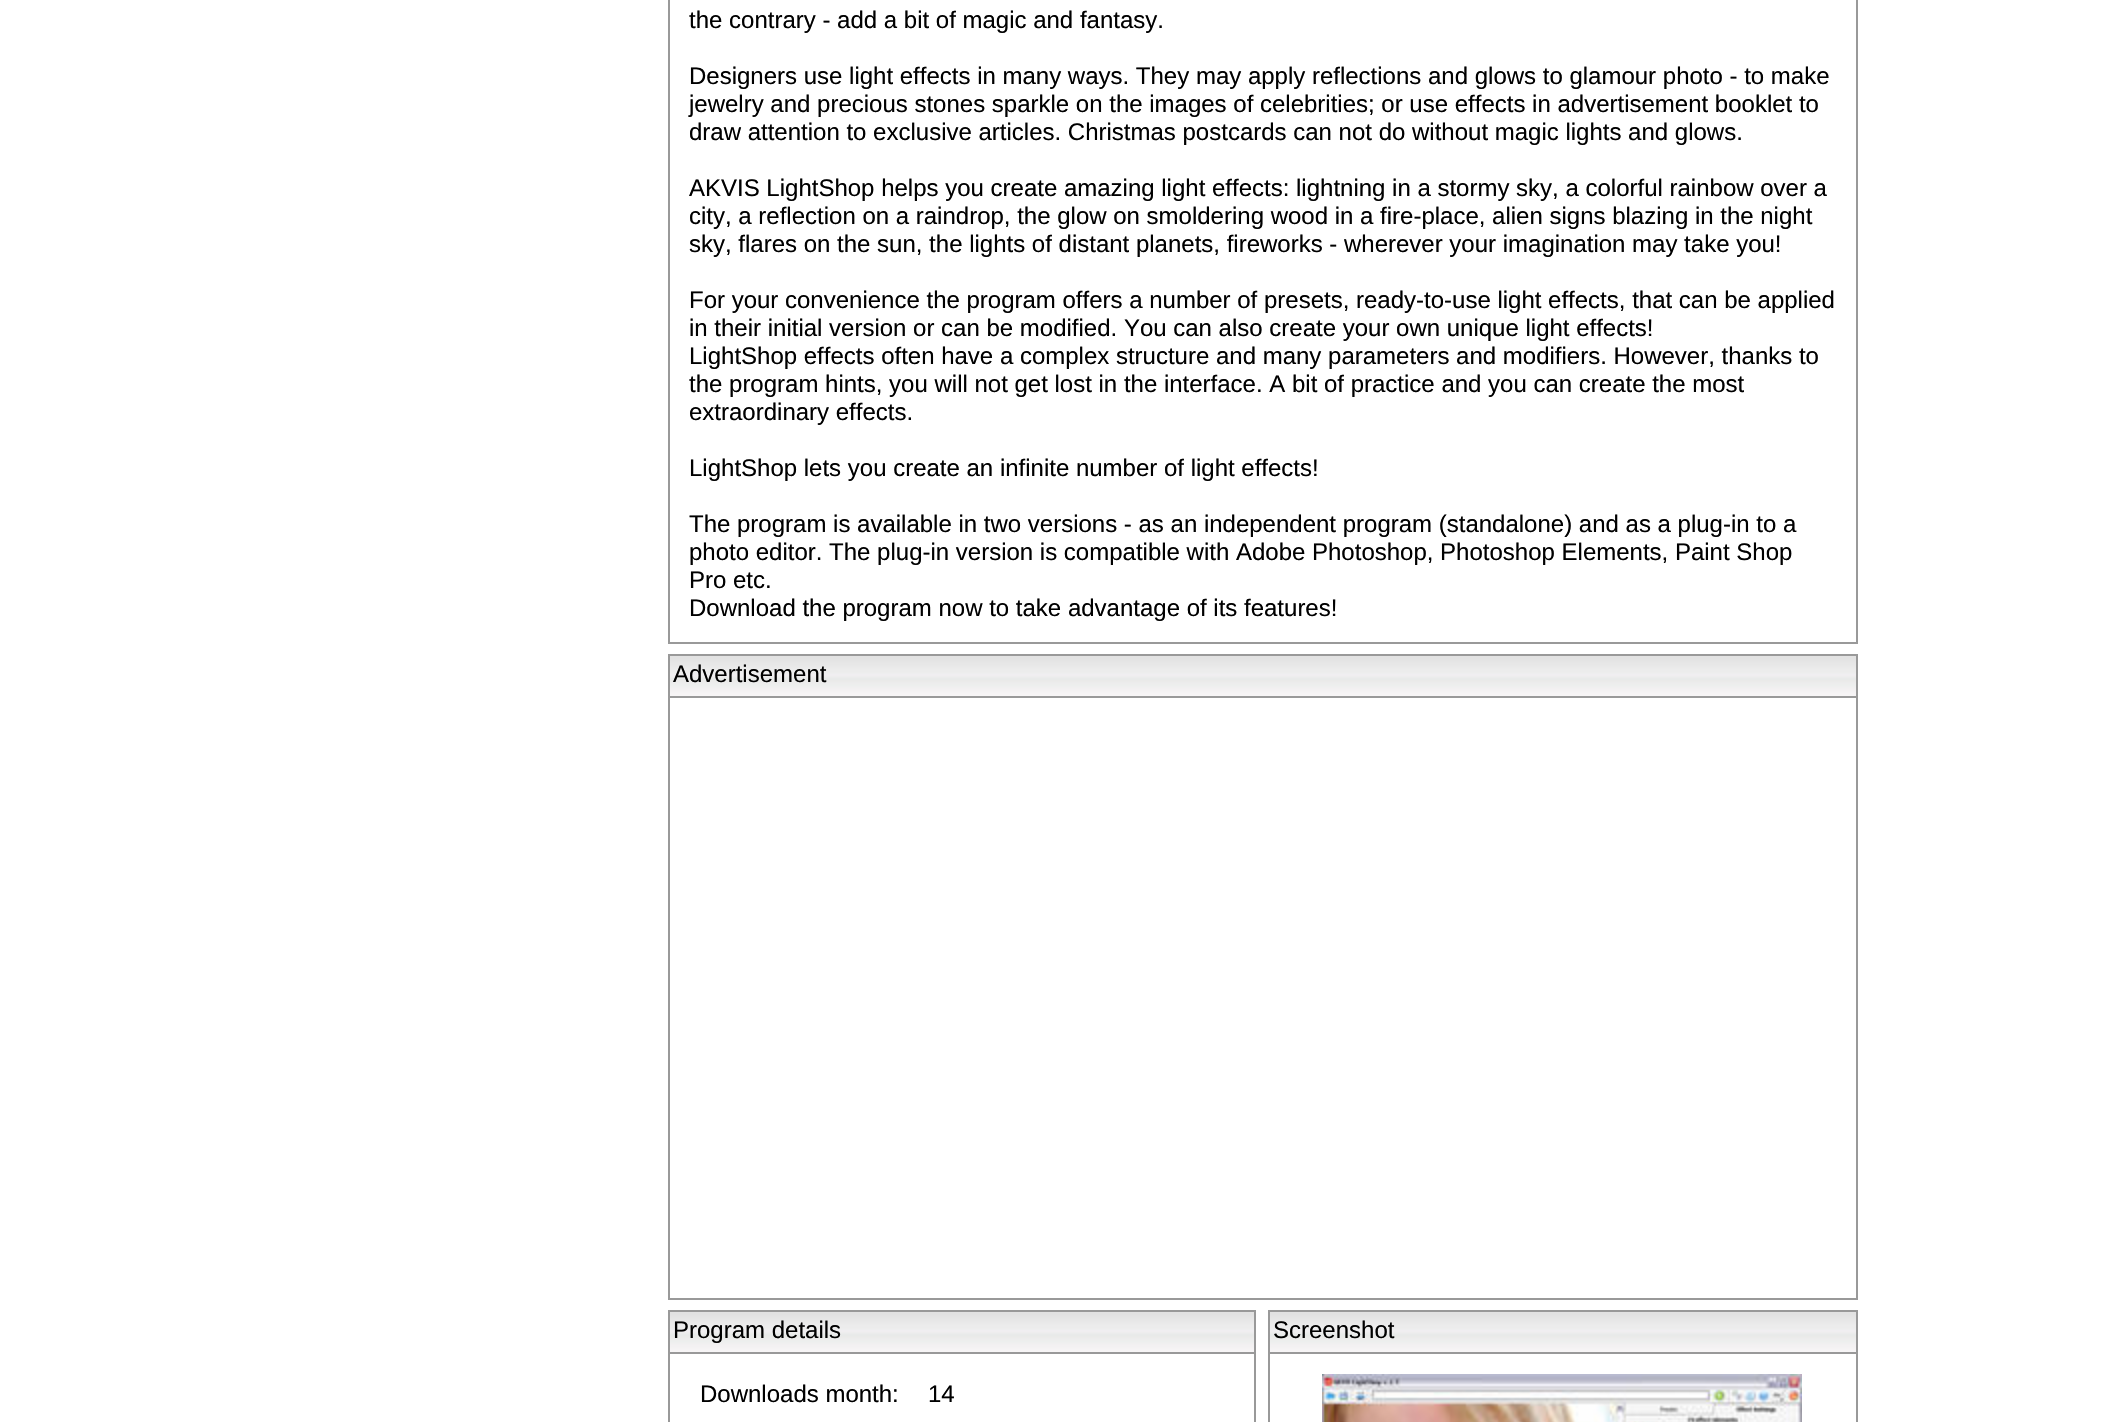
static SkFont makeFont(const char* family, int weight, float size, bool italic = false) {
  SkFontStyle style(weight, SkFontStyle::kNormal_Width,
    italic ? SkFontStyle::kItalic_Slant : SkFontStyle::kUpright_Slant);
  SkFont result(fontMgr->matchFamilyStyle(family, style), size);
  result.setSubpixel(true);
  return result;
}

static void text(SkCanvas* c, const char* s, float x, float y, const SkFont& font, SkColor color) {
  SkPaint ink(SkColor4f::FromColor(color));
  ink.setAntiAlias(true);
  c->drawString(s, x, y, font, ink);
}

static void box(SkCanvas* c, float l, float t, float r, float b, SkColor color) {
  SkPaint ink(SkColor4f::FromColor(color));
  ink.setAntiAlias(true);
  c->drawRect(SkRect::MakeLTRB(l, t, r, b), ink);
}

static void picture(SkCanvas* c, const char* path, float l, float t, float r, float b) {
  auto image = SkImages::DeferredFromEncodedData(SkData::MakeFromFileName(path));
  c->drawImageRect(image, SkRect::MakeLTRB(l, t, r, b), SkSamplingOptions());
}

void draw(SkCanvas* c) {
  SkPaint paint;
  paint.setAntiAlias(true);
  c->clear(0xffffffff);
  box(c, 1856, 0, 1858, 644, 0xff999999);
  box(c, 668, 642, 1858, 644, 0xff999999);
  box(c, 668, 0, 670, 644, 0xff999999);
  SkFont face1 = makeFont("Liberation Sans", 400, 24);
  text(c, "the contrary - add a bit of magic and fantasy.", 689, 28, face1, 0xff000000);
  text(c, "Designers use light effects in many ways. They may apply reflections and glows to glamour photo - to make", 689, 84, face1, 0xff000000);
  text(c, "jewelry and precious stones sparkle on the images of celebrities; or use effects in advertisement booklet to", 689, 112, face1, 0xff000000);
  text(c, "draw attention to exclusive articles. Christmas postcards can not do without magic lights and glows.", 689, 140, face1, 0xff000000);
  text(c, "AKVIS LightShop helps you create amazing light effects: lightning in a stormy sky, a colorful rainbow over a", 689, 196, face1, 0xff000000);
  text(c, "city, a reflection on a raindrop, the glow on smoldering wood in a fire-place, alien signs blazing in the night", 689, 224, face1, 0xff000000);
  text(c, "sky, flares on the sun, the lights of distant planets, fireworks - wherever your imagination may take you!", 689, 252, face1, 0xff000000);
  text(c, "For your convenience the program offers a number of presets, ready-to-use light effects, that can be applied", 689, 308, face1, 0xff000000);
  text(c, "in their initial version or can be modified. You can also create your own unique light effects!", 689, 336, face1, 0xff000000);
  text(c, "LightShop effects often have a complex structure and many parameters and modifiers. However, thanks to", 689, 364, face1, 0xff000000);
  text(c, "the program hints, you will not get lost in the interface. A bit of practice and you can create the most", 689, 392, face1, 0xff000000);
  text(c, "extraordinary effects.", 689, 420, face1, 0xff000000);
  text(c, "LightShop lets you create an infinite number of light effects!", 689, 476, face1, 0xff000000);
  text(c, "The program is available in two versions - as an independent program (standalone) and as a plug-in to a", 689, 532, face1, 0xff000000);
  text(c, "photo editor. The plug-in version is compatible with Adobe Photoshop, Photoshop Elements, Paint Shop", 689, 560, face1, 0xff000000);
  text(c, "Pro etc.", 689, 588, face1, 0xff000000);
  text(c, "Download the program now to take advantage of its features!", 689, 616, face1, 0xff000000);
  picture(c, "img_01.png", 670, 656, 1856, 696);
  paint.setStyle(SkPaint::kStroke_Style);
  paint.setStrokeWidth(2);
  paint.setColor(0xff999999);
  c->drawRect(SkRect::MakeLTRB(669, 655, 1857, 697), paint);
  text(c, "Advertisement", 673, 682, face1, 0xff000000);
  box(c, 1856, 698, 1858, 1300, 0xff999999);
  box(c, 668, 1298, 1858, 1300, 0xff999999);
  box(c, 668, 698, 670, 1300, 0xff999999);
  picture(c, "img_02.png", 670, 1312, 1254, 1352);
  c->drawRect(SkRect::MakeLTRB(669, 1311, 1255, 1353), paint);
  text(c, "Program details", 673, 1338, face1, 0xff000000);
  box(c, 1254, 1354, 1256, 1422, 0xff999999);
  box(c, 668, 1354, 670, 1422, 0xff999999);
  text(c, "Downloads month:", 700, 1402, face1, 0xff000000);
  text(c, "14", 928, 1402, face1, 0xff000000);
  picture(c, "img_03.png", 1270, 1312, 1856, 1352);
  c->drawRect(SkRect::MakeLTRB(1269, 1311, 1857, 1353), paint);
  text(c, "Screenshot", 1273, 1338, face1, 0xff000000);
  box(c, 1856, 1354, 1858, 1422, 0xff999999);
  box(c, 1268, 1354, 1270, 1422, 0xff999999);
  picture(c, "img_04.png", 1322, 1374, 1802, 1422);
}
